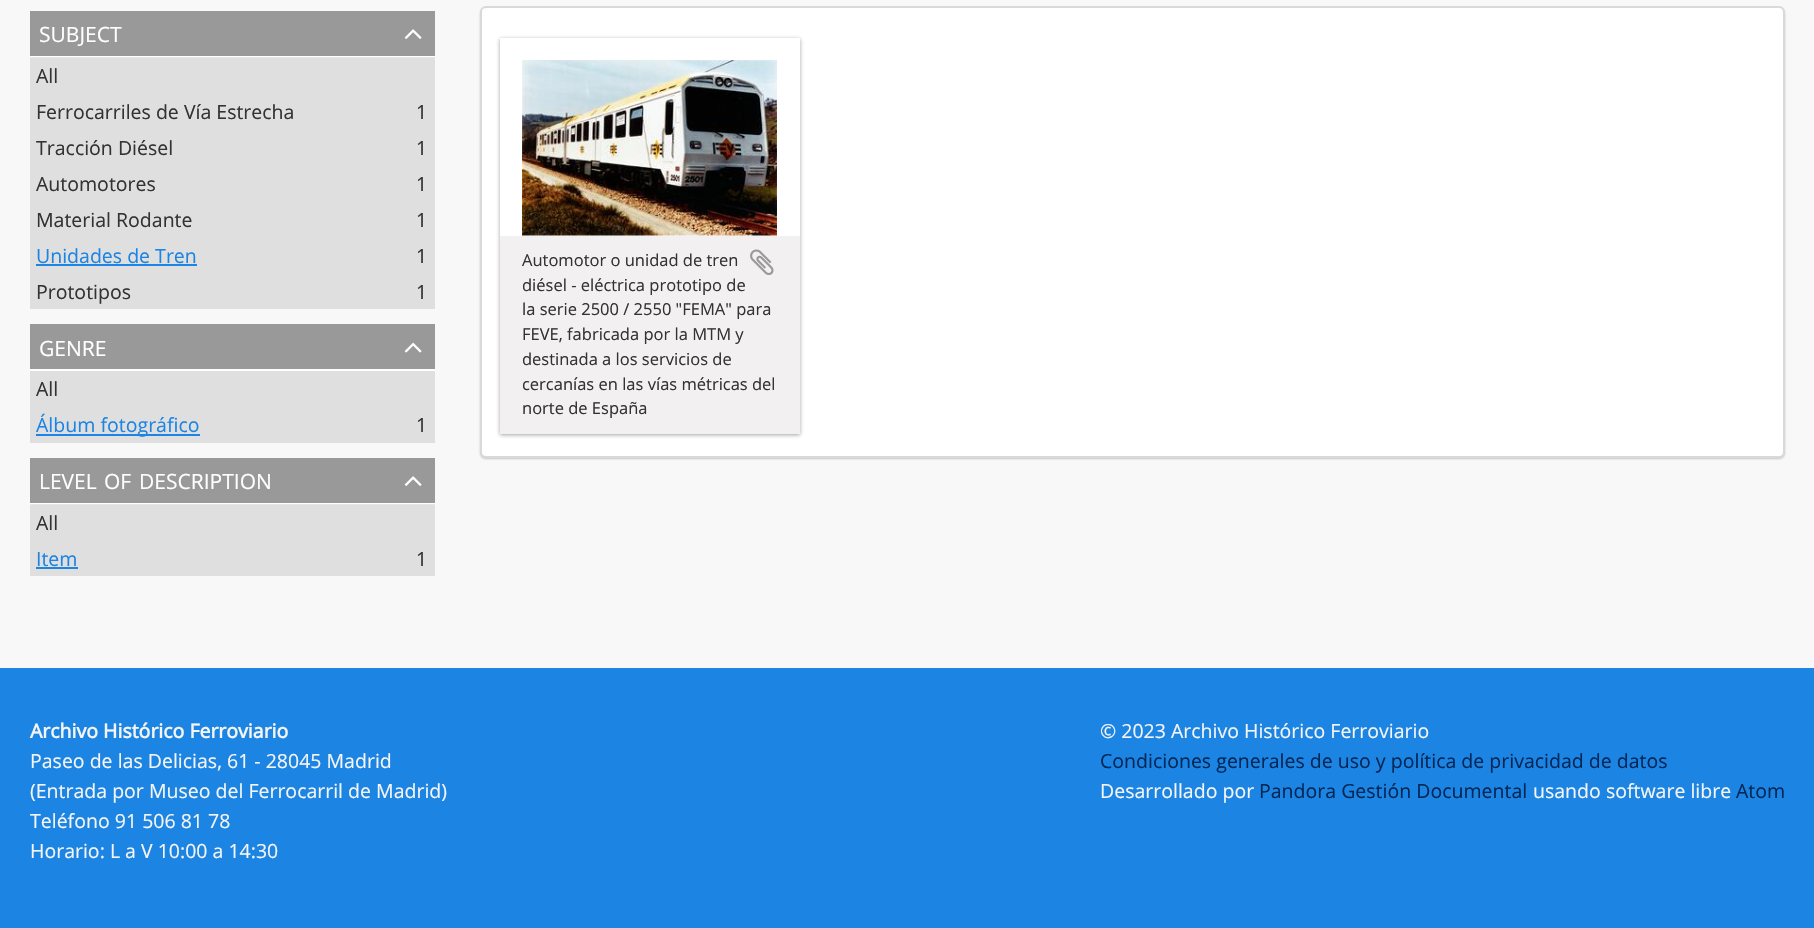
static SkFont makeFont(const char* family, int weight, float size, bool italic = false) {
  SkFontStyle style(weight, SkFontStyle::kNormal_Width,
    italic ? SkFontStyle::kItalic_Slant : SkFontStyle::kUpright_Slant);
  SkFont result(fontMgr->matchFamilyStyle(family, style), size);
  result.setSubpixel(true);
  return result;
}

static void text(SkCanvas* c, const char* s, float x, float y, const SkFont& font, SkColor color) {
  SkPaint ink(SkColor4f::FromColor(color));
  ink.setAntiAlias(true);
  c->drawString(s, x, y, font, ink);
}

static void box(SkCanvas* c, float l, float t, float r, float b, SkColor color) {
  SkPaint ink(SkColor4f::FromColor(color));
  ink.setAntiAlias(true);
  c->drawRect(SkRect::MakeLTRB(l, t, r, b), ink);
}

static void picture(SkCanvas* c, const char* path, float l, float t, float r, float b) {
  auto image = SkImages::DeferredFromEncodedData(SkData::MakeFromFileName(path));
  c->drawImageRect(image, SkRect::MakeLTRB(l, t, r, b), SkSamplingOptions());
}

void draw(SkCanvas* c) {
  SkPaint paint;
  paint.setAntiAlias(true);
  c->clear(0xfff8f8f8);
  box(c, 30, 505, 435, 576, 0xffdfdfdf);
  box(c, 30, 58, 435, 309, 0xffdfdfdf);
  box(c, 30, 56, 435, 57, 0xffffffff);
  box(c, 30, 57, 435, 58, 0xffe6e6e6);
  box(c, 30, 11, 435, 56, 0xff999999);
  SkFont face1 = makeFont("Open Sans", 400, 21);
  text(c, "SUBJECT", 39, 42, face1, 0xffffffff);
  picture(c, "img_01.png", 404, 29, 422, 39);
  SkFont face2 = makeFont("Open Sans", 400, 19.5f);
  text(c, "All", 36, 83, face2, 0xff333333);
  text(c, "Ferrocarriles de Vía Estrecha", 36, 119, face2, 0xff333333);
  text(c, "1", 416, 119, face2, 0xff333333);
  text(c, "Tracción Diésel", 36, 155, face2, 0xff333333);
  text(c, "1", 416, 155, face2, 0xff333333);
  text(c, "Automotores", 36, 191, face2, 0xff333333);
  text(c, "1", 416, 191, face2, 0xff333333);
  text(c, "Material Rodante", 36, 227, face2, 0xff333333);
  text(c, "1", 416, 227, face2, 0xff333333);
  text(c, "Unidades de Tren", 36, 263, face2, 0xff1c84e3);
  box(c, 36, 264, 197, 266, 0xff1c84e3);
  text(c, "1", 416, 263, face2, 0xff333333);
  text(c, "Prototipos", 36, 299, face2, 0xff333333);
  text(c, "1", 416, 299, face2, 0xff333333);
  box(c, 30, 369, 435, 371, 0xffffffff);
  box(c, 30, 324, 435, 369, 0xff999999);
  text(c, "GENRE", 39, 356, face1, 0xffffffff);
  picture(c, "img_02.png", 404, 342, 422, 353);
  box(c, 30, 371, 435, 443, 0xffdfdfdf);
  text(c, "All", 36, 396, face2, 0xff333333);
  box(c, 36, 434, 200, 436, 0xff1c84e3);
  text(c, "Álbum fotográfico", 36, 432, face2, 0xff1c84e3);
  text(c, "1", 416, 432, face2, 0xff333333);
  box(c, 30, 503, 435, 504, 0xffffffff);
  box(c, 30, 504, 435, 505, 0xffe6e6e6);
  box(c, 30, 458, 435, 503, 0xff999999);
  text(c, "LEVEL", 39, 489, face1, 0xffffffff);
  text(c, "OF", 104, 489, face1, 0xffffffff);
  text(c, "DESCRIPTION", 139, 489, face1, 0xffffffff);
  picture(c, "img_01.png", 404, 476, 422, 486);
  text(c, "All", 36, 530, face2, 0xff333333);
  text(c, "Item", 36, 566, face2, 0xff1c84e3);
  box(c, 36, 567, 78, 569, 0xff1c84e3);
  text(c, "1", 416, 566, face2, 0xff333333);
  paint.setColor(0x33000000);
  paint.setMaskFilter(SkMaskFilter::MakeBlur(kNormal_SkBlurStyle, 1));
  c->drawRoundRect(SkRect::MakeLTRB(480, 8, 1785, 459), 6, 6, paint);
  paint.setMaskFilter(nullptr);
  paint.setColor(0xffffffff);
  c->drawRoundRect(SkRect::MakeLTRB(481, 7, 1784, 457), 5, 5, paint);
  paint.setStyle(SkPaint::kStroke_Style);
  paint.setStrokeWidth(2);
  paint.setColor(0xffd9d9d9);
  c->drawRoundRect(SkRect::MakeLTRB(481, 7, 1784, 457), 5, 5, paint);
  paint.setStyle(SkPaint::kFill_Style);
  paint.setColor(0x66191919);
  paint.setMaskFilter(SkMaskFilter::MakeBlur(kNormal_SkBlurStyle, 2));
  c->drawRect(SkRect::MakeLTRB(500, 39, 800, 435), paint);
  paint.setMaskFilter(nullptr);
  box(c, 500, 38, 800, 236, 0xffffffff);
  picture(c, "img_03.png", 522, 60, 777, 236);
  box(c, 500, 236, 800, 434, 0xfff2f0f0);
  SkFont face3 = makeFont("Open Sans", 400, 16.5f);
  text(c, "Automotor o unidad de tren", 522, 266, face3, 0xff333333);
  picture(c, "img_04.png", 750, 249, 774, 275);
  text(c, "diésel - eléctrica prototipo de", 522, 291, face3, 0xff333333);
  text(c, "la serie 2500 / 2550 \"FEMA\" para", 522, 315, face3, 0xff333333);
  text(c, "FEVE, fabricada por la MTM y", 522, 340, face3, 0xff333333);
  text(c, "destinada a los servicios de", 522, 365, face3, 0xff333333);
  text(c, "cercanías en las vías métricas del", 522, 390, face3, 0xff333333);
  text(c, "norte de España", 522, 414, face3, 0xff333333);
  box(c, 0, 668, 1814, 928, 0xff1c84e3);
  SkFont face4 = makeFont("Open Sans", 700, 19.5f);
  text(c, "Archivo Histórico Ferroviario", 30, 738, face4, 0xfff5f5f5);
  text(c, "Paseo de las Delicias, 61 - 28045 Madrid", 30, 768, face2, 0xfff5f5f5);
  text(c, "(Entrada por Museo del Ferrocarril de Madrid)", 30, 798, face2, 0xfff5f5f5);
  text(c, "Teléfono 91 506 81 78", 30, 828, face2, 0xfff5f5f5);
  text(c, "Horario: L a V 10:00 a 14:30", 30, 858, face2, 0xfff5f5f5);
  text(c, "© 2023 Archivo Histórico Ferroviario", 1100, 738, face2, 0xfff5f5f5);
  text(c, "Condiciones generales de uso y política de privacidad de datos", 1100, 768, face2, 0xff002756);
  text(c, "Desarrollado por", 1100, 798, face2, 0xfff5f5f5);
  text(c, "Pandora Gestión Documental", 1259, 798, face2, 0xff002756);
  text(c, "usando software libre", 1533, 798, face2, 0xfff5f5f5);
  text(c, "Atom", 1736, 798, face2, 0xff002756);
}
